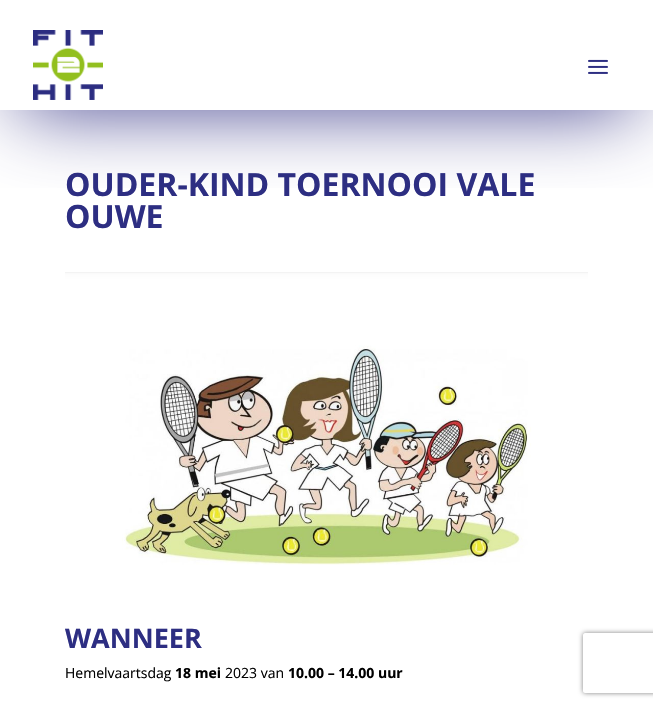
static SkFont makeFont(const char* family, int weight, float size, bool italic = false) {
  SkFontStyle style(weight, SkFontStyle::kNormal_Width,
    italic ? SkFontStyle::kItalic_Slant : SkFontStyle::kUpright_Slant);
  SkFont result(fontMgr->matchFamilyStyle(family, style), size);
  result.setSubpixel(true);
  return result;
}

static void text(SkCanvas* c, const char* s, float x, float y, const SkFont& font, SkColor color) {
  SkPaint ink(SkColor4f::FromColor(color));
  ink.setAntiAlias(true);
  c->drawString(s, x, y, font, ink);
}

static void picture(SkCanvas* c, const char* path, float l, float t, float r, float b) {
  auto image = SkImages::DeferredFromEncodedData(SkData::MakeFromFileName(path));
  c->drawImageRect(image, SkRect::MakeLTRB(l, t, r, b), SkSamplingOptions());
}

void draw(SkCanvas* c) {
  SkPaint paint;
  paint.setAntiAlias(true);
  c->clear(0xffffffff);
  c->save();
  c->clipRect(SkRect::MakeLTRB(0, 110, 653, 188));
  paint.setColor(0xff2e2d82);
  paint.setMaskFilter(SkMaskFilter::MakeBlur(kNormal_SkBlurStyle, 40));
  c->drawRect(SkRect::MakeLTRB(20, 36, 633, 106), paint);
  paint.setMaskFilter(nullptr);
  c->restore();
  picture(c, "img_01.png", 33, 30, 103, 100);
  picture(c, "img_02.png", 588, 59, 608, 74);
  SkFont face1 = makeFont("Open Sans", 700, 32);
  text(c, "OUDER-KIND TOERNOOI VALE", 65, 196, face1, 0xff2d2e82);
  text(c, "OUWE", 65, 228, face1, 0xff2d2e82);
  picture(c, "img_03.png", 65, 272, 588, 565);
  SkFont face2 = makeFont("Open Sans", 700, 27);
  text(c, "WANNEER", 65, 648, face2, 0xff2d2e82);
  SkFont face3 = makeFont("Open Sans", 400, 14);
  text(c, "Hemelvaartsdag", 65, 678, face3, 0xff000000);
  SkFont face4 = makeFont("Open Sans", 700, 14);
  text(c, "18 mei", 175, 678, face4, 0xff000000);
  text(c, "2023 van", 225, 678, face3, 0xff000000);
  text(c, "10.00 – 14.00 uur", 288, 678, face4, 0xff000000);
  c->save();
  c->clipPath(SkPathBuilder(SkPathFillType::kEvenOdd).moveTo(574, 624).lineTo(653, 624).lineTo(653, 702).lineTo(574, 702).close().moveTo(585, 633).lineTo(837, 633).cubicTo(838, 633, 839, 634, 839, 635).lineTo(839, 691).cubicTo(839, 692, 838, 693, 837, 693).lineTo(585, 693).cubicTo(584, 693, 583, 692, 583, 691).lineTo(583, 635).cubicTo(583, 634, 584, 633, 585, 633).close().detach(), true);
  paint.setColor(0xff808080);
  paint.setMaskFilter(SkMaskFilter::MakeBlur(kNormal_SkBlurStyle, 2.5f));
  c->drawRoundRect(SkRect::MakeLTRB(583, 633, 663, 693), 2, 2, paint);
  paint.setMaskFilter(nullptr);
  c->restore();
}
